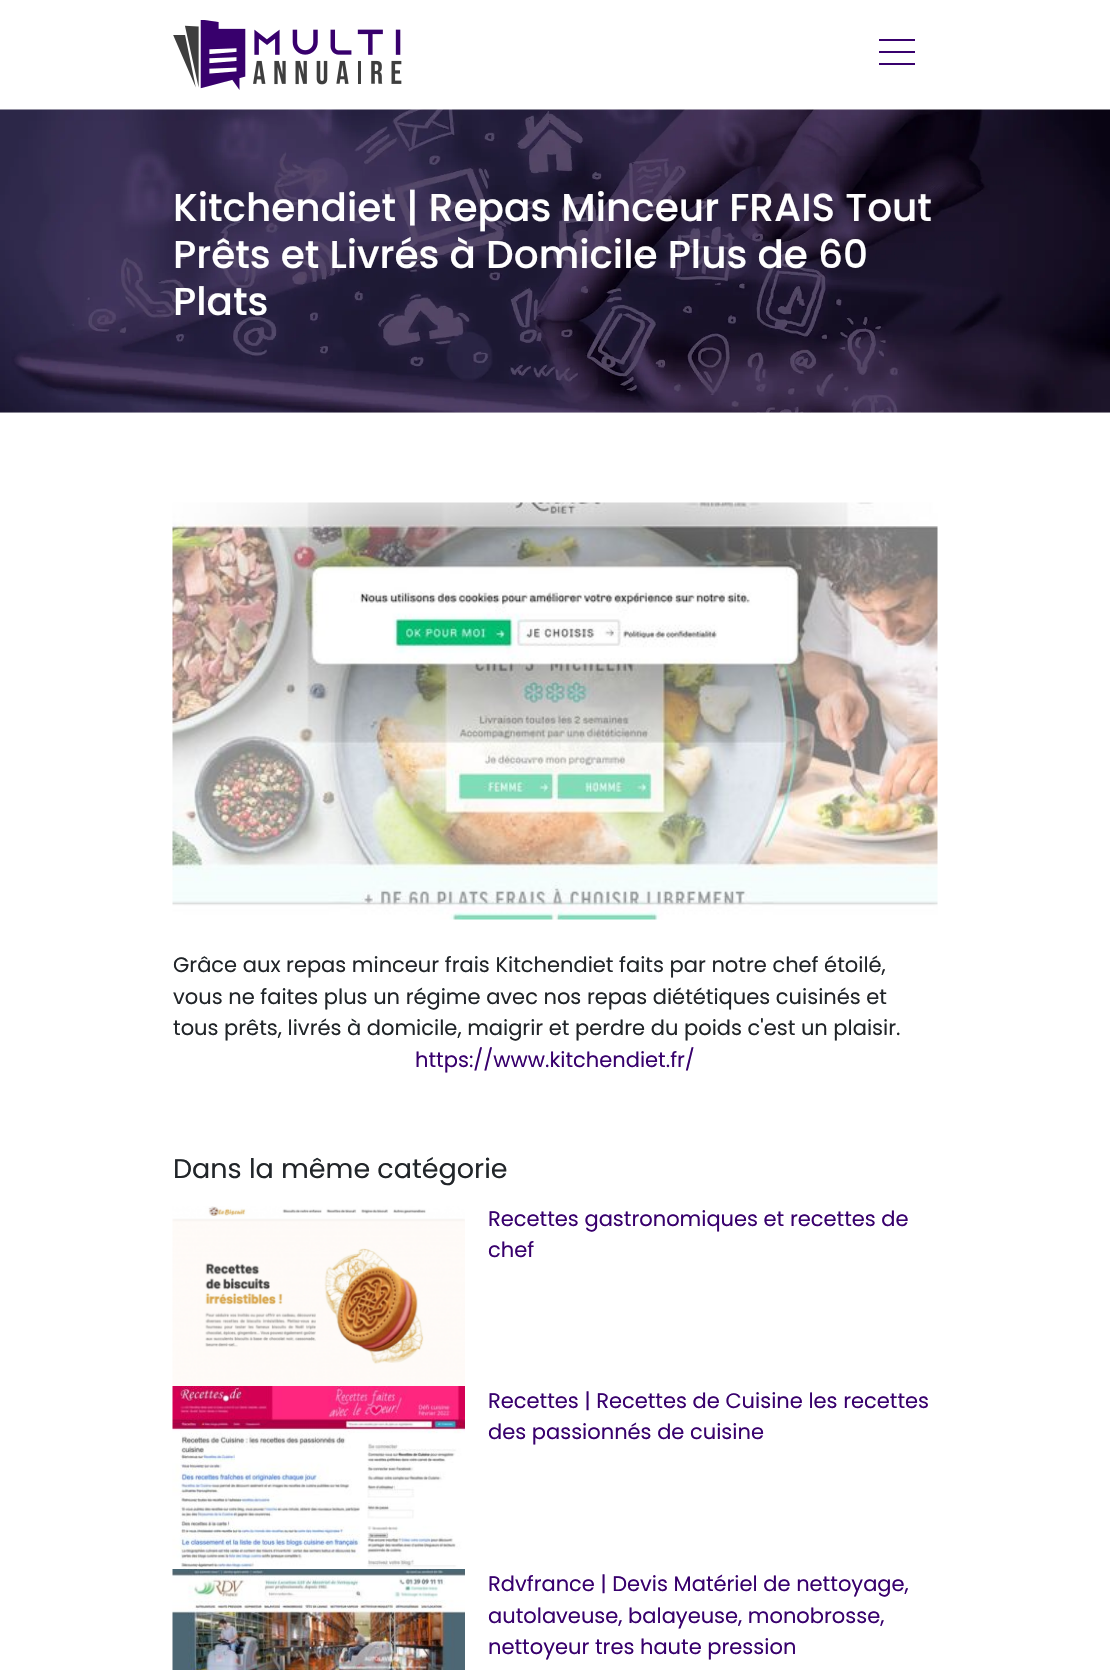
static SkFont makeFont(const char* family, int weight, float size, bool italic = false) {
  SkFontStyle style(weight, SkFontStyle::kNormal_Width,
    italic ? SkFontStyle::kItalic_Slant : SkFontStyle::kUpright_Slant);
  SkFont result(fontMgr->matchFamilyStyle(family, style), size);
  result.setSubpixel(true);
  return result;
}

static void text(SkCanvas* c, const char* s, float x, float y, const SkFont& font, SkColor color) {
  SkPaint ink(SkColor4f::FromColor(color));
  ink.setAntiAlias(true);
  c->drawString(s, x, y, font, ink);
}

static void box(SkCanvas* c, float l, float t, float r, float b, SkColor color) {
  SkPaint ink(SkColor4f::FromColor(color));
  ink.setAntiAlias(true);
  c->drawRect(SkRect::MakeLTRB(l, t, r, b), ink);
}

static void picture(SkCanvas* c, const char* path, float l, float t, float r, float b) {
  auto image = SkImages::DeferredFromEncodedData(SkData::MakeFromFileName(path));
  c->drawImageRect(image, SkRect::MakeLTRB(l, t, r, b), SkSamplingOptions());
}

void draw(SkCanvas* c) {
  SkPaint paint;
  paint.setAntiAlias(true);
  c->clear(0xffffffff);
  c->save();
  c->clipPath(SkPathBuilder(SkPathFillType::kEvenOdd).moveTo(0, 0).lineTo(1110, 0).lineTo(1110, 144).lineTo(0, 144).close().moveTo(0, 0).lineTo(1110, 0).lineTo(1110, 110).lineTo(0, 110).close().detach(), true);
  paint.setColor(0x1a000000);
  paint.setMaskFilter(SkMaskFilter::MakeBlur(kNormal_SkBlurStyle, 10));
  c->drawRect(SkRect::MakeLTRB(0, 3, 1110, 113), paint);
  paint.setMaskFilter(nullptr);
  c->restore();
  picture(c, "img_01.png", 173, 20, 402, 90);
  box(c, 879, 39, 915, 41, 0xff38006d);
  box(c, 879, 51, 915, 53, 0xff38006d);
  box(c, 879, 63, 915, 65, 0xff38006d);
  box(c, 0, 412, 1110, 413, 0xffeeeeee);
  picture(c, "img_02.png", 0, 109, 1110, 413);
  SkFont face1 = makeFont("Poppins", 500, 39);
  text(c, "Kitchendiet | Repas Minceur FRAIS Tout", 173, 221, face1, 0xffffffff);
  text(c, "Prêts et Livrés à Domicile Plus de 60", 173, 268, face1, 0xffffffff);
  text(c, "Plats", 173, 315, face1, 0xffffffff);
  picture(c, "img_03.png", 172, 502, 938, 920);
  SkFont face2 = makeFont("Poppins", 400, 21);
  text(c, "Grâce aux repas minceur frais Kitchendiet faits par notre chef étoilé,", 173, 972, face2, 0xff212529);
  text(c, "vous ne faites plus un régime avec nos repas diététiques cuisinés et", 173, 1004, face2, 0xff212529);
  text(c, "tous prêts, livrés à domicile, maigrir et perdre du poids c'est un plaisir.", 173, 1035, face2, 0xff212529);
  text(c, "https://www.kitchendiet.fr/", 415, 1067, face2, 0xff38006d);
  SkFont face3 = makeFont("Poppins", 400, 27);
  text(c, "Dans la même catégorie", 173, 1178, face3, 0xff212529);
  picture(c, "img_04.png", 172, 1206, 465, 1386);
  text(c, "Recettes gastronomiques et recettes de", 488, 1226, face2, 0xff38006d);
  text(c, "chef", 488, 1257, face2, 0xff38006d);
  picture(c, "img_05.png", 172, 1386, 465, 1569);
  text(c, "Recettes | Recettes de Cuisine les recettes", 488, 1408, face2, 0xff38006d);
  text(c, "des passionnés de cuisine", 488, 1439, face2, 0xff38006d);
  picture(c, "img_06.png", 172, 1569, 465, 1670);
  text(c, "Rdvfrance | Devis Matériel de nettoyage,", 488, 1591, face2, 0xff38006d);
  text(c, "autolaveuse, balayeuse, monobrosse,", 488, 1623, face2, 0xff38006d);
  text(c, "nettoyeur tres haute pression", 488, 1654, face2, 0xff38006d);
}
